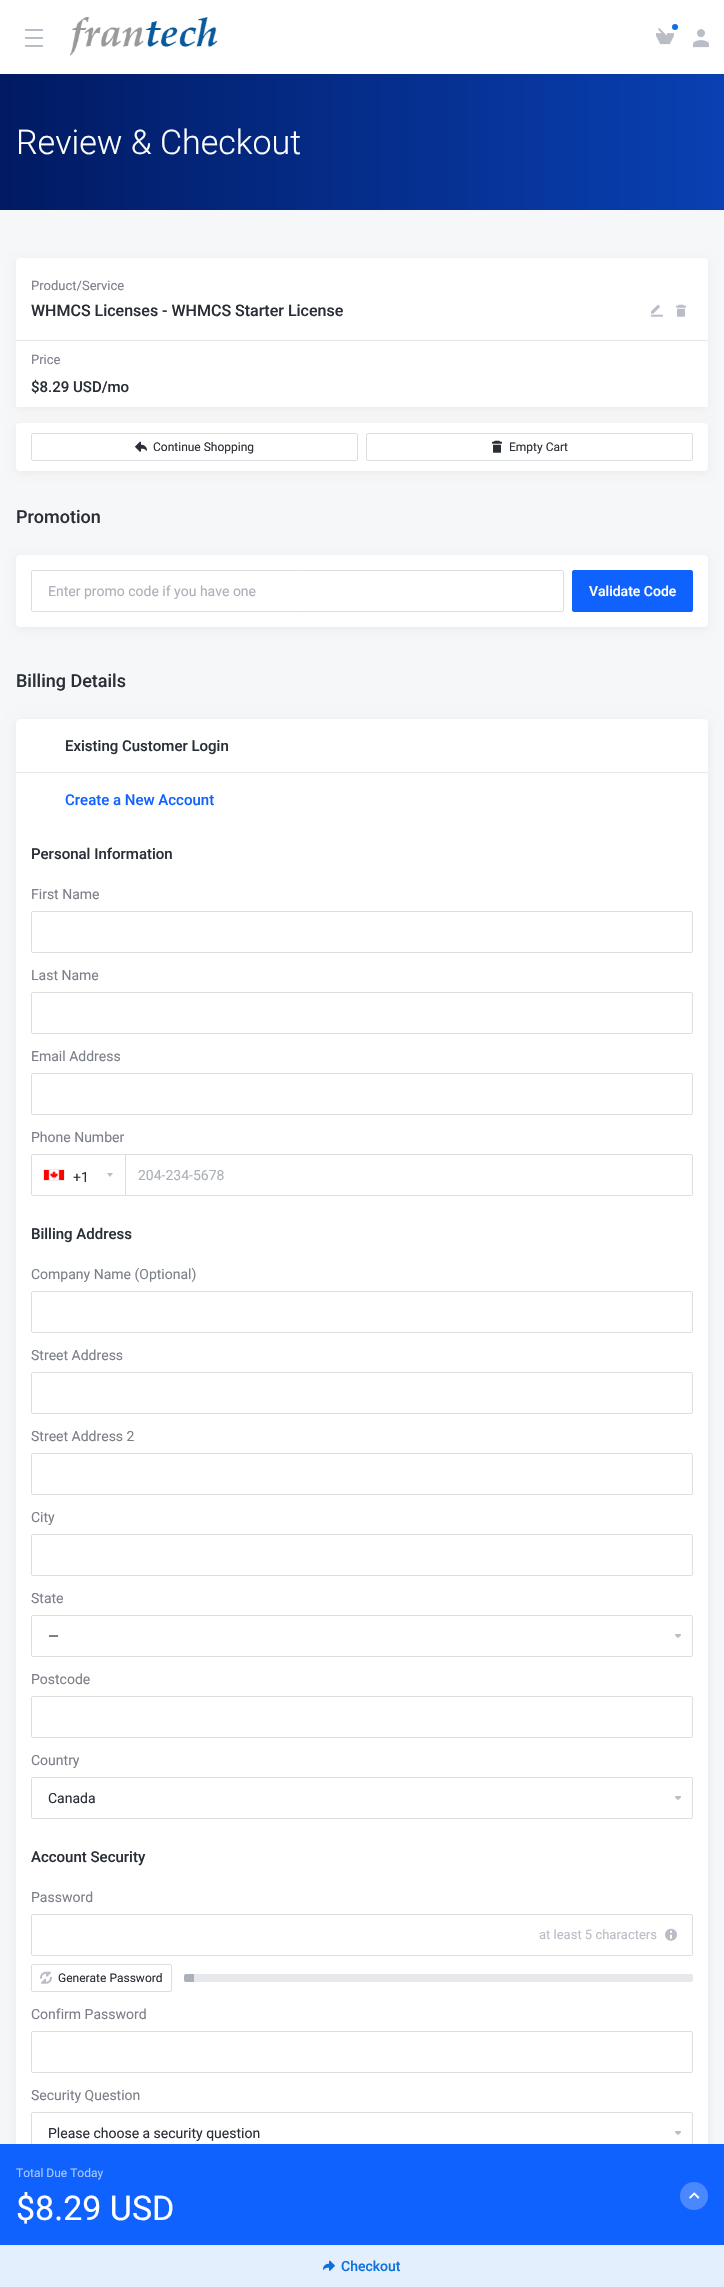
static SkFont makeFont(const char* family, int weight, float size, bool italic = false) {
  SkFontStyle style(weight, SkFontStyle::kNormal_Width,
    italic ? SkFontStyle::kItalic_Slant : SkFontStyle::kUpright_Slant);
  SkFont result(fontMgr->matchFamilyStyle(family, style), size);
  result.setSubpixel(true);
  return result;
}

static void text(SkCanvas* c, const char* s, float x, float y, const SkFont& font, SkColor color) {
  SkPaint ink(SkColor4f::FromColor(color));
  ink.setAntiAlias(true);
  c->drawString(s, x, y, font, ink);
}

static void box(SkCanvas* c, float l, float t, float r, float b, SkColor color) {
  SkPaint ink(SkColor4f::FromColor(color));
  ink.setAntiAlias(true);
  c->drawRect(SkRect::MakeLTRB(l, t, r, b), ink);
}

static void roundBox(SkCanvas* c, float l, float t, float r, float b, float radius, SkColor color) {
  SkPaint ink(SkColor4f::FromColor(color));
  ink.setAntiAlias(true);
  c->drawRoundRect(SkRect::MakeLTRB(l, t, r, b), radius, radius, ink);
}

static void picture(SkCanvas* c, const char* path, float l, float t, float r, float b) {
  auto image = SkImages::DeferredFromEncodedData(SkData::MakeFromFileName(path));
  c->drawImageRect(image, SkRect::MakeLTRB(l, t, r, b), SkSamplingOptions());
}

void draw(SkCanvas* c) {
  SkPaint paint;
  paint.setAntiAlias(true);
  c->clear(0xffffffff);
  box(c, 25, 29, 43, 31, 0xffb9bdc5);
  box(c, 25, 37, 43, 39, 0xffb9bdc5);
  box(c, 25, 45, 43, 47, 0xffb9bdc5);
  picture(c, "img_01.png", 70, 17, 218, 56);
  picture(c, "img_02.png", 656, 28, 674, 45);
  paint.setColor(0xff0c70de);
  c->drawCircle(675, 27, 3, paint);
  picture(c, "img_03.png", 693, 29, 709, 48);
  {
    const SkColor colors[] = {0xff011a62, 0xff0940b3};
    const float stops[] = {0, 1};
    const SkPoint ends[] = {{0, 142}, {724, 142}};
    paint.setShader(SkGradientShader::MakeLinear(ends, colors, stops, 2, SkTileMode::kClamp));
    paint.setAlpha(255);
  }
  c->drawRect(SkRect::MakeLTRB(0, 74, 724, 210), paint);
  SkFont face1 = makeFont("Roboto", 300, 34);
  text(c, "Review & Checkout", 16, 154, face1, 0xffffffff);
  box(c, 0, 210, 724, 2144, 0xfff6f7f8);
  paint.setShader(nullptr);
  paint.setColor(0x0d000000);
  paint.setMaskFilter(SkMaskFilter::MakeBlur(kNormal_SkBlurStyle, 5));
  c->drawRoundRect(SkRect::MakeLTRB(16, 425, 708, 473), 4, 4, paint);
  paint.setMaskFilter(nullptr);
  roundBox(c, 16, 423, 708, 471, 4, 0xffffffff);
  paint.setMaskFilter(SkMaskFilter::MakeBlur(kNormal_SkBlurStyle, 5));
  c->drawRoundRect(SkRect::MakeLTRB(16, 260, 708, 409), 4, 4, paint);
  paint.setMaskFilter(nullptr);
  roundBox(c, 16, 258, 708, 407, 4, 0xffffffff);
  SkFont face2 = makeFont("Roboto", 400, 13);
  text(c, "Product/Service", 31, 290, face2, 0xff7c8088);
  SkFont face3 = makeFont("Roboto", 500, 16);
  text(c, "WHMCS Licenses - WHMCS Starter License", 31, 316, face3, 0xff2a2e36);
  picture(c, "img_04.png", 651, 304, 663, 317);
  picture(c, "img_05.png", 676, 304, 686, 317);
  box(c, 16, 404, 708, 407, 0xffffffff);
  text(c, "Price", 31, 364, face2, 0xff7c8088);
  box(c, 16, 340, 708, 341, 0xffe6e6e6);
  SkFont face4 = makeFont("Roboto", 500, 15);
  text(c, "$8.29 USD/mo", 31, 392, face4, 0xff2a2e36);
  paint.setStyle(SkPaint::kStroke_Style);
  paint.setStrokeWidth(1);
  paint.setColor(0xffdcdee2);
  c->drawRoundRect(SkRect::MakeLTRB(31.5f, 433.5f, 357.5f, 460.5f), 1.5f, 1.5f, paint);
  picture(c, "img_06.png", 135, 441, 147, 452);
  SkFont face5 = makeFont("Roboto", 400, 12);
  text(c, "Continue Shopping", 153, 451, face5, 0xff2a2e36);
  c->drawRoundRect(SkRect::MakeLTRB(366.5f, 433.5f, 692.5f, 460.5f), 1.5f, 1.5f, paint);
  picture(c, "img_07.png", 492, 440, 502, 453);
  text(c, "Empty Cart", 509, 451, face5, 0xff2a2e36);
  SkFont face6 = makeFont("Roboto", 500, 18);
  text(c, "Promotion", 16, 523, face6, 0xff2a2e36);
  paint.setStyle(SkPaint::kFill_Style);
  paint.setColor(0x0d000000);
  paint.setMaskFilter(SkMaskFilter::MakeBlur(kNormal_SkBlurStyle, 5));
  c->drawRoundRect(SkRect::MakeLTRB(16, 557, 708, 629), 4, 4, paint);
  paint.setMaskFilter(nullptr);
  roundBox(c, 16, 555, 708, 627, 4, 0xffffffff);
  paint.setStyle(SkPaint::kStroke_Style);
  paint.setColor(0xffdcdee2);
  c->drawRoundRect(SkRect::MakeLTRB(31.5f, 570.5f, 563.5f, 611.5f), 1.5f, 1.5f, paint);
  SkFont face7 = makeFont("Roboto", 400, 14);
  text(c, "Enter promo code if you have one", 48, 596, face7, 0xffacb0b8);
  paint.setStyle(SkPaint::kFill_Style);
  paint.setColor(0xff1062fe);
  c->drawRoundRect(SkRect::MakeLTRB(572.5f, 570.5f, 692.5f, 611.5f), 1.5f, 1.5f, paint);
  paint.setStyle(SkPaint::kStroke_Style);
  c->drawRoundRect(SkRect::MakeLTRB(572.5f, 570.5f, 692.5f, 611.5f), 1.5f, 1.5f, paint);
  SkFont face8 = makeFont("Roboto", 500, 14);
  text(c, "Validate Code", 589, 596, face8, 0xffffffff);
  text(c, "Billing Details", 16, 687, face6, 0xff2a2e36);
  paint.setStyle(SkPaint::kFill_Style);
  paint.setColor(0x0d000000);
  paint.setMaskFilter(SkMaskFilter::MakeBlur(kNormal_SkBlurStyle, 5));
  c->drawRect(SkRect::MakeLTRB(16, 721, 708, 2262), paint);
  paint.setMaskFilter(nullptr);
  paint.setColor(0xffffffff);
  c->drawPath(SkPathBuilder().moveTo(20, 719).lineTo(704, 719).cubicTo(706, 719, 708, 721, 708, 723).lineTo(708, 773).lineTo(16, 773).lineTo(16, 723).cubicTo(16, 721, 18, 719, 20, 719).close().detach(), paint);
  text(c, "Existing Customer Login", 65, 751, face4, 0xff2a2e36);
  box(c, 16, 773, 708, 2144, 0xffffffff);
  box(c, 16, 772, 708, 773, 0xffe6e8ec);
  text(c, "Create a New Account", 65, 805, face4, 0xff1062fe);
  text(c, "Personal Information", 31, 859, face4, 0xff2a2e36);
  text(c, "First Name", 31, 899, face7, 0xff7c8088);
  paint.setStyle(SkPaint::kStroke_Style);
  paint.setColor(0xffdcdee2);
  c->drawRoundRect(SkRect::MakeLTRB(31.5f, 911.5f, 692.5f, 952.5f), 1.5f, 1.5f, paint);
  text(c, "Last Name", 31, 980, face7, 0xff7c8088);
  c->drawRoundRect(SkRect::MakeLTRB(31.5f, 992.5f, 692.5f, 1033.5f), 1.5f, 1.5f, paint);
  text(c, "Email Address", 31, 1061, face7, 0xff7c8088);
  c->drawRoundRect(SkRect::MakeLTRB(31.5f, 1073.5f, 692.5f, 1114.5f), 1.5f, 1.5f, paint);
  text(c, "Phone Number", 31, 1142, face7, 0xff7c8088);
  c->drawRoundRect(SkRect::MakeLTRB(31.5f, 1154.5f, 692.5f, 1195.5f), 1.5f, 1.5f, paint);
  box(c, 125, 1155, 126, 1195, 0xffdcdee2);
  paint.setStyle(SkPaint::kFill_Style);
  paint.setColor(0xff888888);
  paint.setMaskFilter(SkMaskFilter::MakeBlur(kNormal_SkBlurStyle, 0.5f));
  c->drawRect(SkRect::MakeLTRB(44, 1170, 64, 1180), paint);
  paint.setMaskFilter(nullptr);
  picture(c, "img_08.png", 44, 1170, 64, 1180);
  text(c, "+1", 73, 1182, face7, 0xff2a2e36);
  paint.setColor(0xffb9bdc5);
  c->drawPath(SkPathBuilder().moveTo(107, 1173).lineTo(113, 1173).lineTo(110, 1177).close().detach(), paint);
  text(c, "204-234-5678", 138, 1180, face7, 0xffacb0b8);
  text(c, "Billing Address", 31, 1239, face4, 0xff2a2e36);
  text(c, "Company Name (Optional)", 31, 1279, face7, 0xff7c8088);
  paint.setStyle(SkPaint::kStroke_Style);
  paint.setColor(0xffdcdee2);
  c->drawRoundRect(SkRect::MakeLTRB(31.5f, 1291.5f, 692.5f, 1332.5f), 1.5f, 1.5f, paint);
  text(c, "Street Address", 31, 1360, face7, 0xff7c8088);
  c->drawRoundRect(SkRect::MakeLTRB(31.5f, 1372.5f, 692.5f, 1413.5f), 1.5f, 1.5f, paint);
  text(c, "Street Address 2", 31, 1441, face7, 0xff7c8088);
  c->drawRoundRect(SkRect::MakeLTRB(31.5f, 1453.5f, 692.5f, 1494.5f), 1.5f, 1.5f, paint);
  text(c, "City", 31, 1522, face7, 0xff7c8088);
  c->drawRoundRect(SkRect::MakeLTRB(31.5f, 1534.5f, 692.5f, 1575.5f), 1.5f, 1.5f, paint);
  text(c, "State", 31, 1603, face7, 0xff7c8088);
  picture(c, "img_09.png", 675, 1634, 681, 1638);
  c->drawRoundRect(SkRect::MakeLTRB(31.5f, 1615.5f, 692.5f, 1656.5f), 1.5f, 1.5f, paint);
  text(c, "—", 48, 1641, face7, 0xff2a2e36);
  text(c, "Postcode", 31, 1684, face7, 0xff7c8088);
  c->drawRoundRect(SkRect::MakeLTRB(31.5f, 1696.5f, 692.5f, 1737.5f), 1.5f, 1.5f, paint);
  text(c, "Country", 31, 1765, face7, 0xff7c8088);
  picture(c, "img_09.png", 675, 1796, 681, 1800);
  c->drawRoundRect(SkRect::MakeLTRB(31.5f, 1777.5f, 692.5f, 1818.5f), 1.5f, 1.5f, paint);
  text(c, "Canada", 48, 1803, face7, 0xff2a2e36);
  text(c, "Account Security", 31, 1862, face4, 0xff2a2e36);
  text(c, "Password", 31, 1902, face7, 0xff7c8088);
  c->drawRoundRect(SkRect::MakeLTRB(31.5f, 1914.5f, 692.5f, 1955.5f), 1.5f, 1.5f, paint);
  text(c, "at least 5 characters", 539, 1939, face2, 0xffb9bdc5);
  picture(c, "img_10.png", 665, 1928, 677, 1941);
  c->drawRoundRect(SkRect::MakeLTRB(31.5f, 1964.5f, 171.5f, 1991.5f), 1.5f, 1.5f, paint);
  picture(c, "img_11.png", 40, 1971, 52, 1984);
  text(c, "Generate Password", 58, 1982, face5, 0xff2a2e36);
  roundBox(c, 184, 1974, 693, 1982, 2, 0xffe6e8ec);
  paint.setStyle(SkPaint::kFill_Style);
  paint.setColor(0xffacb0b8);
  c->drawPath(SkPathBuilder().moveTo(186, 1974).lineTo(194, 1974).lineTo(194, 1982).lineTo(186, 1982).cubicTo(185, 1982, 184, 1981, 184, 1980).lineTo(184, 1976).cubicTo(184, 1975, 185, 1974, 186, 1974).close().detach(), paint);
  text(c, "Confirm Password", 31, 2019, face7, 0xff7c8088);
  paint.setStyle(SkPaint::kStroke_Style);
  paint.setColor(0xffdcdee2);
  c->drawRoundRect(SkRect::MakeLTRB(31.5f, 2031.5f, 692.5f, 2072.5f), 1.5f, 1.5f, paint);
  text(c, "Security Question", 31, 2100, face7, 0xff7c8088);
  picture(c, "img_09.png", 675, 2131, 681, 2135);
  c->drawRoundRect(SkRect::MakeLTRB(31.5f, 2112.5f, 692.5f, 2153.5f), 1.5f, 1.5f, paint);
  text(c, "Please choose a security question", 48, 2138, face7, 0xff2a2e36);
  box(c, 0, 2144, 724, 2245, 0xff1062fe);
  text(c, "Total Due Today", 16, 2177, face5, 0xffa9c6ff);
  SkFont face9 = makeFont("Roboto", 400, 34);
  text(c, "$8.29 USD", 16, 2220, face9, 0xffffffff);
  paint.setStyle(SkPaint::kFill_Style);
  paint.setColor(0xff4988fe);
  c->drawCircle(694, 2196, 14, paint);
  picture(c, "img_12.png", 689, 2192, 700, 2199);
  box(c, 0, 2245, 724, 2287, 0xffe3effc);
  picture(c, "img_13.png", 323, 2260, 335, 2271);
  text(c, "Checkout", 341, 2271, face8, 0xff0c70de);
}
